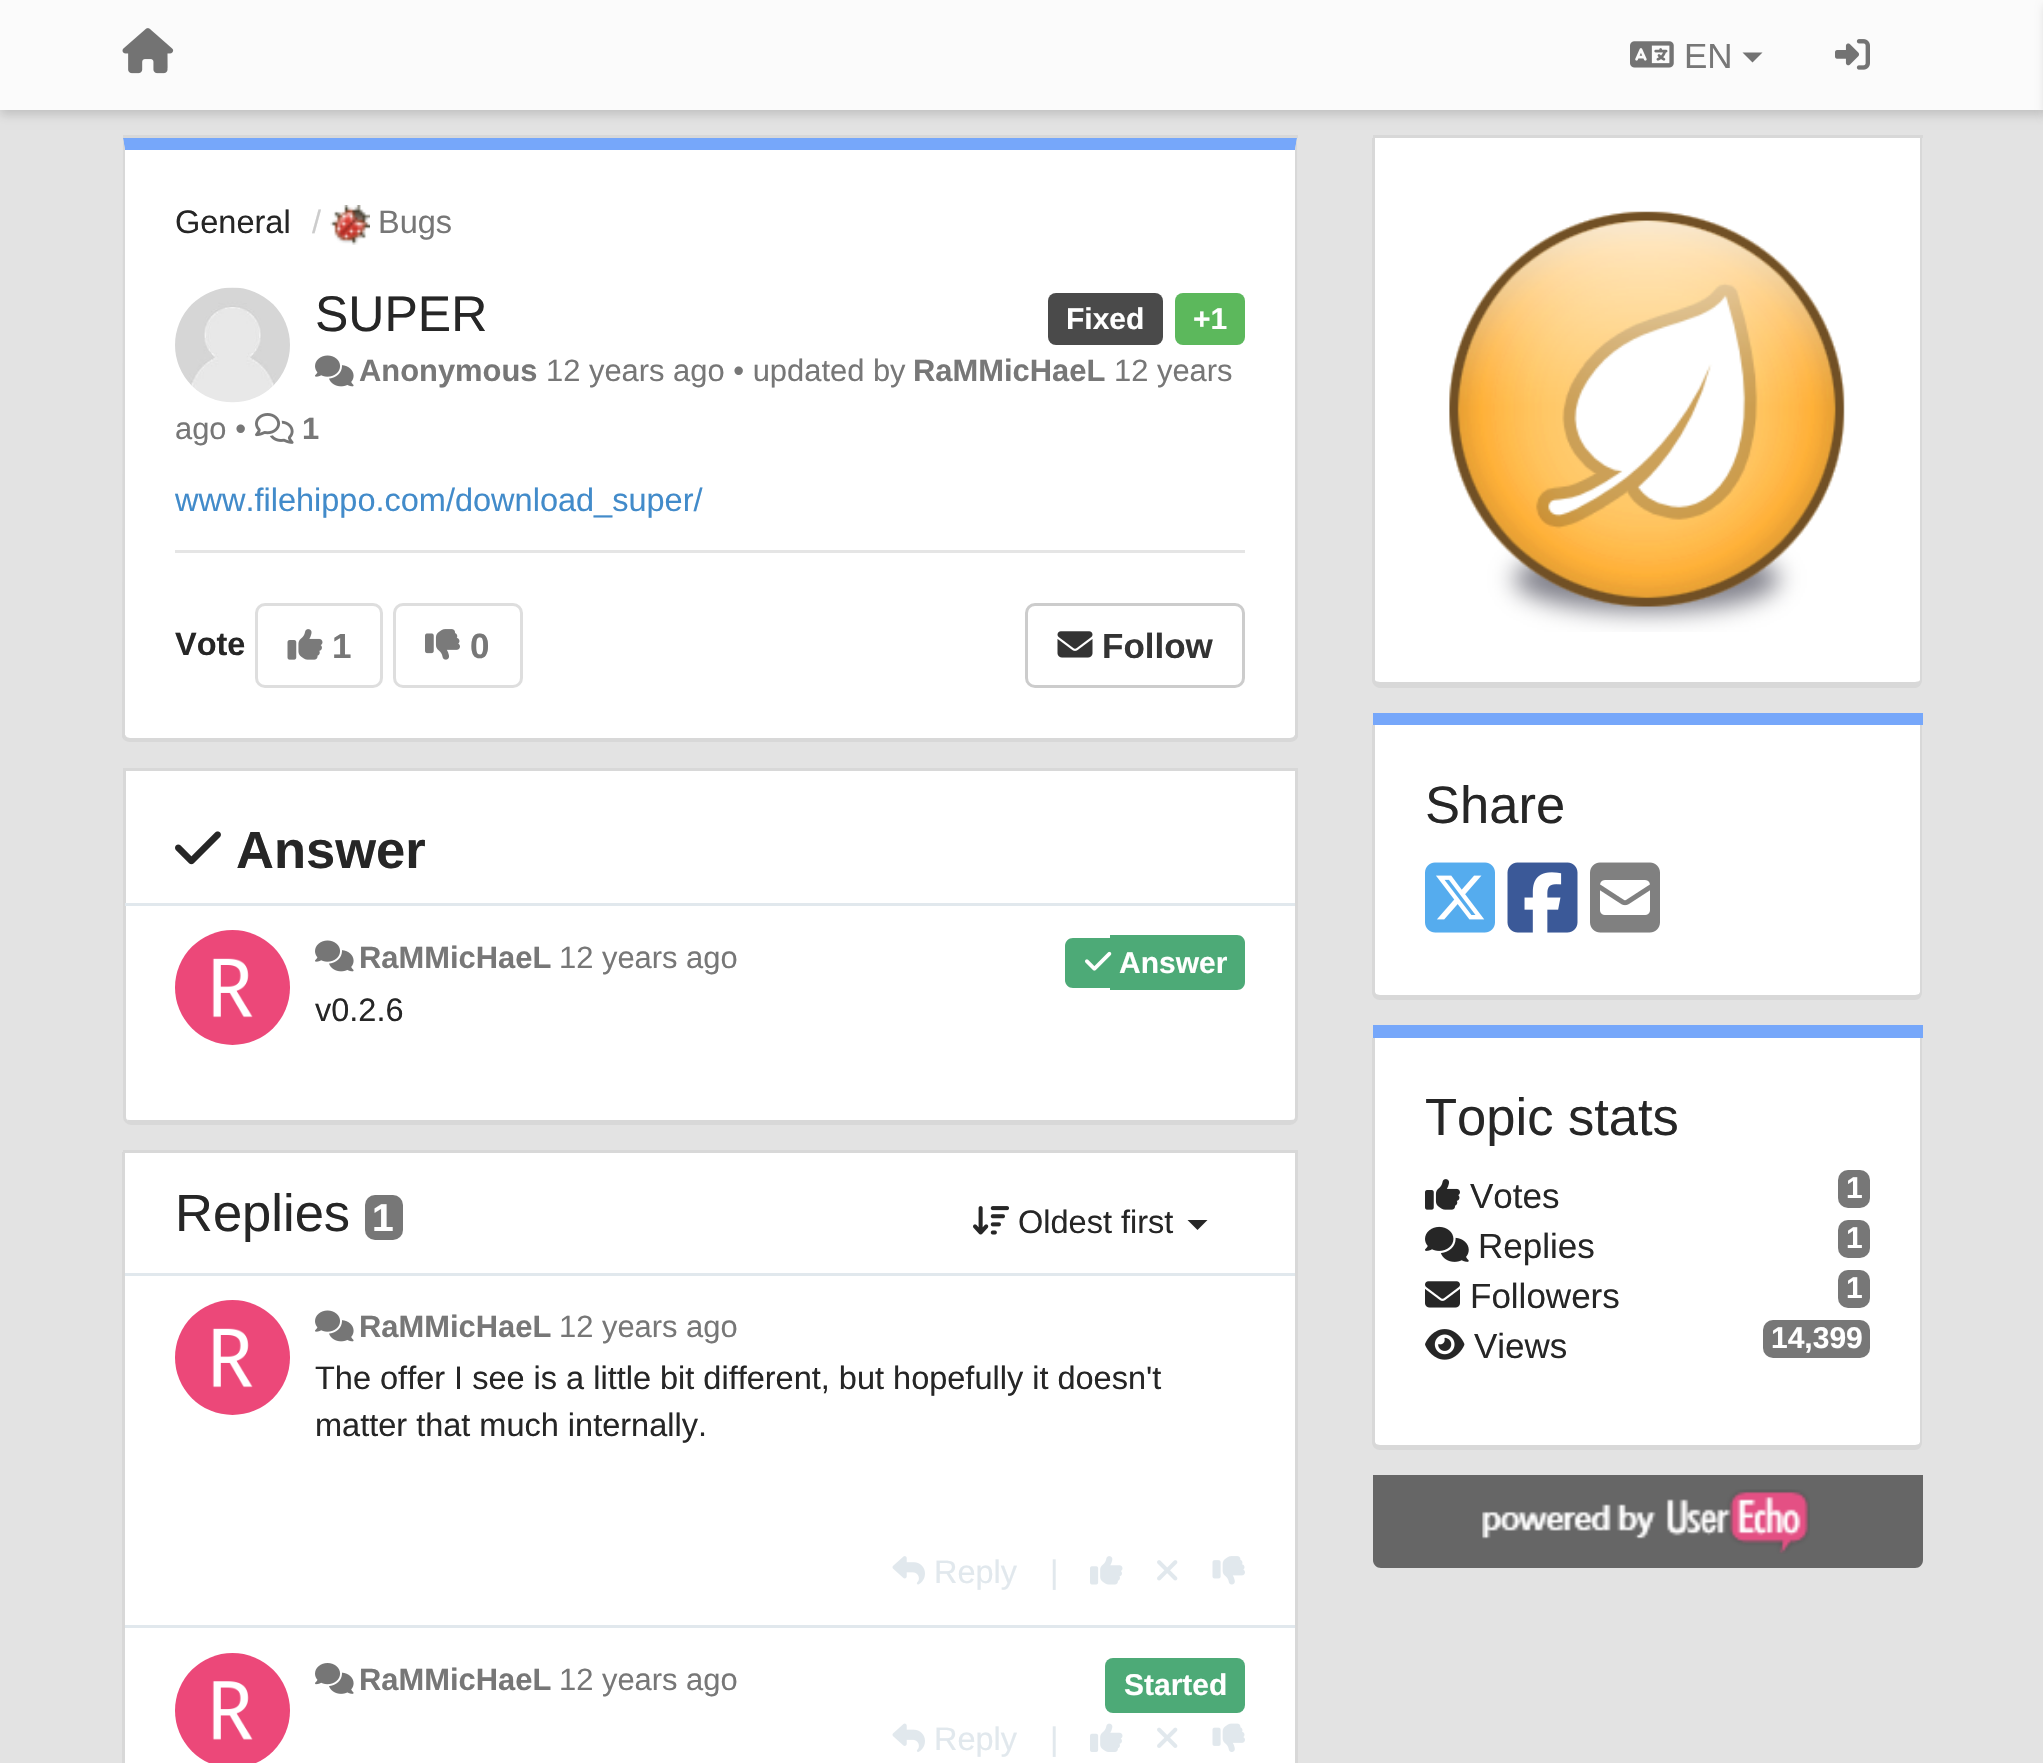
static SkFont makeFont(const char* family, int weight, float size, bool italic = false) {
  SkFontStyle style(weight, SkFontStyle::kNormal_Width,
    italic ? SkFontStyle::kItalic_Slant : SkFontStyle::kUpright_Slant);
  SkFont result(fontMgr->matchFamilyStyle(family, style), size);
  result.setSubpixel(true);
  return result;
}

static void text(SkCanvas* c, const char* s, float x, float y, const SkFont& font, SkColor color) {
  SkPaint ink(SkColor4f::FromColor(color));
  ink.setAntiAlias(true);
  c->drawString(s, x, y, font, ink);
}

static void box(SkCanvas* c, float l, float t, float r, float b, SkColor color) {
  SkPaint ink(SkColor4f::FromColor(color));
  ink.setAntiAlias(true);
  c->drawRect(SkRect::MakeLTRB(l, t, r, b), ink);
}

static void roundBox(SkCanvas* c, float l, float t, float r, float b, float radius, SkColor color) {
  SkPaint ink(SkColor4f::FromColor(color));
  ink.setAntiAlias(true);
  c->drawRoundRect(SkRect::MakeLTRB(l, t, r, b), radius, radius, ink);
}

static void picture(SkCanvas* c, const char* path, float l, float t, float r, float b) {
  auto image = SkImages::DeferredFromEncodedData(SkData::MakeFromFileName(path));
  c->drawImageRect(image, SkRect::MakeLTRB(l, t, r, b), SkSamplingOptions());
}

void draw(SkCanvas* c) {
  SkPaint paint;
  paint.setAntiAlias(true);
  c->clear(0xffe3e3e3);
  paint.setColor(0x26000000);
  paint.setMaskFilter(SkMaskFilter::MakeBlur(kNormal_SkBlurStyle, 5));
  c->drawRect(SkRect::MakeLTRB(0, 5, 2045, 115), paint);
  paint.setMaskFilter(nullptr);
  box(c, 0, 0, 2043, 110, 0xfffbfbfb);
  picture(c, "img_01.png", 122, 28, 174, 74);
  picture(c, "img_02.png", 1630, 41, 1674, 68);
  SkFont face1 = makeFont("Liberation Sans", 400, 35);
  text(c, "EN", 1684, 68, face1, 0xff777777);
  paint.setColor(0xff737373);
  c->drawPath(SkPathBuilder().moveTo(1742.5f, 52.5f).lineTo(1762.5f, 52.5f).lineTo(1752.5f, 62.5f).close().detach(), paint);
  picture(c, "img_03.png", 1835, 39, 1870, 70);
  paint.setColor(0x26000000);
  paint.setMaskFilter(SkMaskFilter::MakeBlur(kNormal_SkBlurStyle, 5));
  c->drawRect(SkRect::MakeLTRB(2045, 5, 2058, 115), paint);
  paint.setMaskFilter(nullptr);
  box(c, 123, 135, 1298, 138, 0xffd8d8d8);
  paint.setColor(0xffffffff);
  c->drawPath(SkPathBuilder().moveTo(125, 150).lineTo(1295, 150).lineTo(1295, 735).cubicTo(1295, 736, 1293, 738, 1290, 738).lineTo(130, 738).cubicTo(127, 738, 125, 736, 125, 735).close().detach(), paint);
  paint.setColor(0xff76a7fa);
  c->drawPath(SkPathBuilder().moveTo(125, 150).lineTo(1295, 150).lineTo(1297, 138).lineTo(123, 138).close().detach(), paint);
  paint.setColor(0xffd8d8d8);
  c->drawPath(SkPathBuilder().moveTo(1298, 737).lineTo(1296, 740).lineTo(1294, 736).lineTo(1295, 735).lineTo(1295, 150).lineTo(1297, 138).close().detach(), paint);
  c->drawPath(SkPathBuilder().moveTo(1296, 740).cubicTo(1294, 741, 1292, 742, 1290, 742).lineTo(130, 742).cubicTo(128, 742, 126, 741, 124, 740).lineTo(126, 736).cubicTo(126, 737, 128, 738, 130, 738).lineTo(1290, 738).cubicTo(1292, 738, 1294, 737, 1294, 736).close().detach(), paint);
  c->drawPath(SkPathBuilder().moveTo(125, 150).lineTo(125, 735).lineTo(126, 736).lineTo(124, 740).lineTo(122, 737).lineTo(123, 138).close().detach(), paint);
  SkFont face2 = makeFont("Liberation Sans", 400, 32.5f);
  text(c, "General", 175, 233, face2, 0xff262626);
  text(c, "/", 312, 233, face2, 0xffcccccc);
  picture(c, "img_04.png", 330, 205, 370, 245);
  text(c, "Bugs", 378, 233, face2, 0xff777777);
  picture(c, "img_05.png", 175, 287, 290, 403);
  SkFont face3 = makeFont("Liberation Sans", 400, 50);
  text(c, "SUPER", 315, 331, face3, 0xff262626);
  roundBox(c, 1048, 293, 1163, 345, 8, 0xff4a4a4a);
  SkFont face4 = makeFont("Liberation Sans", 700, 30);
  text(c, "Fixed", 1066, 329, face4, 0xffffffff);
  roundBox(c, 1175, 293, 1245, 345, 8, 0xff5cb85c);
  text(c, "+1", 1193, 329, face4, 0xffffffff);
  picture(c, "img_06.png", 315, 355, 354, 387);
  SkFont face5 = makeFont("Liberation Sans", 700, 30.9f);
  text(c, "Anonymous", 359, 381, face5, 0xff777777);
  SkFont face6 = makeFont("Liberation Sans", 400, 30.9f);
  text(c, "12 years ago • updated by", 546, 381, face6, 0xff777777);
  text(c, "RaMMicHaeL", 913, 381, face5, 0xff777777);
  text(c, "12 years", 1114, 381, face6, 0xff777777);
  text(c, "ago •", 175, 439, face6, 0xff777777);
  picture(c, "img_07.png", 255, 413, 294, 444);
  text(c, "1", 302, 439, face5, 0xff777777);
  text(c, "www.filehippo.com/download_super/", 175, 511, face2, 0xff428bca);
  box(c, 175, 550, 1245, 553, 0xffe5e5e5);
  SkFont face7 = makeFont("Liberation Sans", 700, 32.5f);
  text(c, "Vote", 175, 655, face7, 0xff262626);
  paint.setStyle(SkPaint::kStroke_Style);
  paint.setStrokeWidth(3);
  paint.setColor(0xffdedede);
  c->drawRoundRect(SkRect::MakeLTRB(256.5f, 604.5f, 381.5f, 686.5f), 8.5f, 8.5f, paint);
  picture(c, "img_08.png", 287, 629, 323, 660);
  SkFont face8 = makeFont("Liberation Sans", 700, 35);
  text(c, "1", 332, 658, face8, 0xff777777);
  c->drawRoundRect(SkRect::MakeLTRB(394.5f, 604.5f, 521.5f, 686.5f), 8.5f, 8.5f, paint);
  picture(c, "img_09.png", 425, 629, 460, 660);
  text(c, "0", 470, 658, face8, 0xff777777);
  paint.setColor(0xffcccccc);
  c->drawRoundRect(SkRect::MakeLTRB(1026.5f, 604.5f, 1243.5f, 686.5f), 8.5f, 8.5f, paint);
  picture(c, "img_10.png", 1057, 631, 1093, 658);
  text(c, "Follow", 1102, 658, face8, 0xff333333);
  paint.setStyle(SkPaint::kFill_Style);
  paint.setColor(0xffffffff);
  c->drawPath(SkPathBuilder().moveTo(125, 770).lineTo(1295, 770).lineTo(1295, 1118).cubicTo(1295, 1119, 1293, 1120, 1290, 1120).lineTo(130, 1120).cubicTo(127, 1120, 125, 1119, 125, 1118).close().detach(), paint);
  paint.setStyle(SkPaint::kStroke_Style);
  paint.setColor(0xffd8d8d8);
  c->drawPath(SkPathBuilder().moveTo(124.5f, 769.5f).lineTo(1296.5f, 769.5f).lineTo(1296.5f, 1117).cubicTo(1296.5f, 1120.5f, 1293.5f, 1123.5f, 1290, 1123.5f).lineTo(131, 1123.5f).cubicTo(127.5f, 1123.5f, 124.5f, 1120.5f, 124.5f, 1117).close().detach(), paint);
  box(c, 128, 1120, 1295, 1122, 0xffd8d8d8);
  picture(c, "img_11.png", 175, 831, 221, 865);
  SkFont face9 = makeFont("Liberation Sans", 700, 52.5f);
  text(c, "Answer", 236, 868, face9, 0xff262626);
  box(c, 125, 903, 1295, 906, 0xffe1e8ed);
  paint.setStyle(SkPaint::kFill_Style);
  paint.setColor(0xffec4879);
  c->drawCircle(232.5f, 987.5f, 57.5f, paint);
  picture(c, "img_12.png", 212, 958, 253, 1018);
  picture(c, "img_06.png", 315, 940, 354, 972);
  text(c, "RaMMicHaeL", 359, 968, face5, 0xff777777);
  text(c, "12 years ago", 559, 968, face6, 0xff777777);
  paint.setColor(0xff4daa77);
  c->drawPath(SkPathBuilder().moveTo(1073, 938).lineTo(1110, 938).lineTo(1110, 988).lineTo(1073, 988).cubicTo(1068.5f, 988, 1065, 984.5f, 1065, 980).lineTo(1065, 946).cubicTo(1065, 941.5f, 1068.5f, 938, 1073, 938).close().detach(), paint);
  c->drawPath(SkPathBuilder().moveTo(1110, 935).lineTo(1237, 935).cubicTo(1241.5f, 935, 1245, 938.5f, 1245, 943).lineTo(1245, 982).cubicTo(1245, 986.5f, 1241.5f, 990, 1237, 990).lineTo(1110, 990).close().detach(), paint);
  picture(c, "img_13.png", 1085, 951, 1112, 971);
  text(c, "Answer", 1119, 973, face4, 0xffffffff);
  text(c, "v0.2.6", 315, 1021, face2, 0xff262626);
  box(c, 123, 1150, 1298, 1153, 0xffd8d8d8);
  box(c, 125, 1153, 1295, 1763, 0xffffffff);
  paint.setColor(0xffd8d8d8);
  c->drawPath(SkPathBuilder(SkPathFillType::kEvenOdd).moveTo(122, 1152).lineTo(1298, 1152).lineTo(1298, 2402).cubicTo(1298, 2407, 1294, 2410, 1290, 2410).lineTo(130, 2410).cubicTo(126, 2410, 122, 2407, 122, 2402).close().moveTo(125, 1152).lineTo(1295, 1152).lineTo(1295, 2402).cubicTo(1295, 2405, 1293, 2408, 1290, 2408).lineTo(130, 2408).cubicTo(127, 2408, 125, 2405, 125, 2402).close().detach(), paint);
  SkFont face10 = makeFont("Liberation Sans", 400, 52.5f);
  text(c, "Replies", 175, 1231, face10, 0xff262626);
  roundBox(c, 365, 1195, 403, 1240, 10, 0xff777777);
  SkFont face11 = makeFont("Liberation Sans", 700, 39);
  text(c, "1", 372, 1231, face11, 0xffffffff);
  picture(c, "img_14.png", 973, 1206, 1009, 1235);
  text(c, "Oldest first", 1018, 1233, face2, 0xff262626);
  paint.setColor(0xff262626);
  c->drawPath(SkPathBuilder().moveTo(1187.5f, 1220).lineTo(1207.5f, 1220).lineTo(1197.5f, 1230).close().detach(), paint);
  box(c, 125, 1273, 1295, 1276, 0xffe1e8ed);
  box(c, 125, 1625, 1295, 1628, 0xffe1e8ed);
  paint.setColor(0xffec4879);
  c->drawCircle(232.5f, 1357.5f, 57.5f, paint);
  picture(c, "img_12.png", 212, 1328, 253, 1388);
  picture(c, "img_06.png", 315, 1310, 354, 1342);
  text(c, "RaMMicHaeL", 359, 1337, face5, 0xff777777);
  text(c, "12 years ago", 559, 1337, face6, 0xff777777);
  text(c, "The offer I see is a little bit different, but hopefully it doesn't", 315, 1389, face2, 0xff262626);
  text(c, "matter that much internally.", 315, 1436, face2, 0xff262626);
  picture(c, "img_15.png", 892, 1556, 925, 1585);
  text(c, "Reply", 934, 1583, face2, 0xffe1e8ed);
  text(c, "|", 1050, 1583, face2, 0xffe1e8ed);
  picture(c, "img_16.png", 1090, 1556, 1123, 1585);
  picture(c, "img_17.png", 1157, 1560, 1178, 1581);
  picture(c, "img_18.png", 1212, 1556, 1245, 1585);
  c->drawCircle(232.5f, 1710.5f, 57.5f, paint);
  picture(c, "img_19.png", 212, 1681, 253, 1740);
  picture(c, "img_20.png", 315, 1663, 354, 1694);
  text(c, "RaMMicHaeL", 359, 1690, face5, 0xff777777);
  text(c, "12 years ago", 559, 1690, face6, 0xff777777);
  roundBox(c, 1105, 1658, 1245, 1713, 8, 0xff4daa77);
  text(c, "Started", 1124, 1695, face4, 0xffffffff);
  picture(c, "img_21.png", 892, 1723, 925, 1752);
  text(c, "Reply", 934, 1750, face2, 0xffe1e8ed);
  text(c, "|", 1050, 1750, face2, 0xffe1e8ed);
  picture(c, "img_22.png", 1090, 1723, 1123, 1752);
  picture(c, "img_23.png", 1157, 1727, 1178, 1748);
  picture(c, "img_24.png", 1212, 1723, 1245, 1752);
  box(c, 1373, 135, 1923, 138, 0xffd8d8d8);
  paint.setColor(0xffffffff);
  c->drawPath(SkPathBuilder().moveTo(1375, 138).lineTo(1920, 138).lineTo(1920, 680).cubicTo(1920, 681, 1918, 682, 1915, 682).lineTo(1380, 682).cubicTo(1377, 682, 1375, 681, 1375, 680).close().detach(), paint);
  paint.setColor(0xffd8d8d8);
  c->drawPath(SkPathBuilder(SkPathFillType::kEvenOdd).moveTo(1372, 138).lineTo(1922, 138).lineTo(1922, 680).cubicTo(1922, 684, 1919, 688, 1915, 688).lineTo(1380, 688).cubicTo(1376, 688, 1372, 684, 1372, 680).close().moveTo(1375, 138).lineTo(1920, 138).lineTo(1920, 680).cubicTo(1920, 681, 1918, 682, 1915, 682).lineTo(1380, 682).cubicTo(1377, 682, 1375, 681, 1375, 680).close().detach(), paint);
  picture(c, "img_25.png", 1449, 211, 1845, 632);
  box(c, 1373, 713, 1923, 725, 0xff76a7fa);
  paint.setColor(0xffffffff);
  c->drawPath(SkPathBuilder().moveTo(1375, 725).lineTo(1920, 725).lineTo(1920, 992).cubicTo(1920, 994, 1918, 995, 1915, 995).lineTo(1380, 995).cubicTo(1377, 995, 1375, 994, 1375, 992).close().detach(), paint);
  paint.setColor(0xffd8d8d8);
  c->drawPath(SkPathBuilder(SkPathFillType::kEvenOdd).moveTo(1372, 725).lineTo(1922, 725).lineTo(1922, 992).cubicTo(1922, 997, 1919, 1000, 1915, 1000).lineTo(1380, 1000).cubicTo(1376, 1000, 1372, 997, 1372, 992).close().moveTo(1375, 725).lineTo(1920, 725).lineTo(1920, 992).cubicTo(1920, 994, 1918, 995, 1915, 995).lineTo(1380, 995).cubicTo(1377, 995, 1375, 994, 1375, 992).close().detach(), paint);
  text(c, "Share", 1425, 823, face10, 0xff262626);
  picture(c, "img_26.png", 1425, 862, 1495, 933);
  picture(c, "img_27.png", 1507, 862, 1578, 933);
  picture(c, "img_28.png", 1590, 862, 1660, 933);
  box(c, 1373, 1025, 1923, 1038, 0xff76a7fa);
  paint.setColor(0xffffffff);
  c->drawPath(SkPathBuilder().moveTo(1375, 1038).lineTo(1920, 1038).lineTo(1920, 1442).cubicTo(1920, 1444, 1918, 1445, 1915, 1445).lineTo(1380, 1445).cubicTo(1377, 1445, 1375, 1444, 1375, 1442).close().detach(), paint);
  paint.setColor(0xffd8d8d8);
  c->drawPath(SkPathBuilder(SkPathFillType::kEvenOdd).moveTo(1372, 1038).lineTo(1922, 1038).lineTo(1922, 1442).cubicTo(1922, 1447, 1919, 1450, 1915, 1450).lineTo(1380, 1450).cubicTo(1376, 1450, 1372, 1447, 1372, 1442).close().moveTo(1375, 1038).lineTo(1920, 1038).lineTo(1920, 1442).cubicTo(1920, 1444, 1918, 1445, 1915, 1445).lineTo(1380, 1445).cubicTo(1377, 1445, 1375, 1444, 1375, 1442).close().detach(), paint);
  text(c, "Topic stats", 1425, 1135, face10, 0xff262626);
  picture(c, "img_29.png", 1425, 1179, 1460, 1210);
  text(c, "Votes", 1470, 1208, face1, 0xff262626);
  roundBox(c, 1838, 1170, 1870, 1208, 10, 0xff777777);
  text(c, "1", 1846, 1198, face4, 0xffffffff);
  picture(c, "img_30.png", 1425, 1226, 1469, 1262);
  text(c, "Replies", 1478, 1258, face1, 0xff262626);
  roundBox(c, 1838, 1220, 1870, 1258, 10, 0xff777777);
  text(c, "1", 1846, 1248, face4, 0xffffffff);
  picture(c, "img_31.png", 1425, 1281, 1460, 1308);
  text(c, "Followers", 1470, 1308, face1, 0xff262626);
  roundBox(c, 1838, 1270, 1870, 1308, 10, 0xff777777);
  text(c, "1", 1846, 1298, face4, 0xffffffff);
  picture(c, "img_32.png", 1425, 1329, 1465, 1360);
  text(c, "Views", 1474, 1358, face1, 0xff262626);
  roundBox(c, 1763, 1320, 1870, 1358, 10, 0xff777777);
  text(c, "14,399", 1771, 1348, face4, 0xffffffff);
  paint.setColor(0xff666666);
  c->drawPath(SkPathBuilder().moveTo(1373, 1475).lineTo(1923, 1475).lineTo(1923, 1560).cubicTo(1923, 1564.5f, 1919.5f, 1568, 1915, 1568).lineTo(1381, 1568).cubicTo(1376.5f, 1568, 1373, 1564.5f, 1373, 1560).close().detach(), paint);
  picture(c, "img_33.png", 1482, 1489, 1810, 1554);
}
